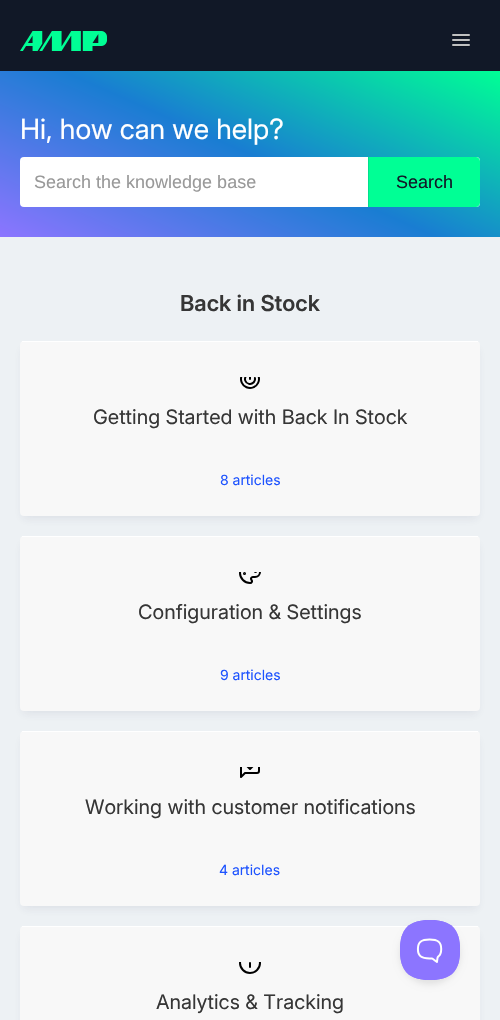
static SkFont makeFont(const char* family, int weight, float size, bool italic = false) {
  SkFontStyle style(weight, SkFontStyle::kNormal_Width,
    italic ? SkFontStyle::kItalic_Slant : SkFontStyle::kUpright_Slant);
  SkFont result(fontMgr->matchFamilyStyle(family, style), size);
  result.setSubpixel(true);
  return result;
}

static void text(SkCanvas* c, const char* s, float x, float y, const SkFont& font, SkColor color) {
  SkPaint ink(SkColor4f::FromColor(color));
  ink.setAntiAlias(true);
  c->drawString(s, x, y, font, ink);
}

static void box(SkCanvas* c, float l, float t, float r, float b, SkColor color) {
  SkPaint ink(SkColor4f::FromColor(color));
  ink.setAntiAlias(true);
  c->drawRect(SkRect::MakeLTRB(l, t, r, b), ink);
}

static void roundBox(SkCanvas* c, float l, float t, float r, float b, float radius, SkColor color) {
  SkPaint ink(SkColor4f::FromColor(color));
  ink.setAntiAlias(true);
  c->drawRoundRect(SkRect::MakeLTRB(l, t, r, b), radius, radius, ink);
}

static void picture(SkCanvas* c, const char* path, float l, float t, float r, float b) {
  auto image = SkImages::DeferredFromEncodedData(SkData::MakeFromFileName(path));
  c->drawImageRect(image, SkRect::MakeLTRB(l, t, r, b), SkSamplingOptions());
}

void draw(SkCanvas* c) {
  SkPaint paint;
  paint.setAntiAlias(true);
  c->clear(0xffedf1f4);
  box(c, 0, 0, 500, 71, 0xff111827);
  picture(c, "img_01.png", 20, 31, 107, 51);
  paint.setColor(0xff0d121d);
  c->drawPath(SkPathBuilder().moveTo(452, 35.5f).cubicTo(451, 37.5f, 455.5f, 37, 455.5f, 37).lineTo(466.5f, 37).cubicTo(466.5f, 37, 471, 37.5f, 470, 35.5f).cubicTo(469, 36.5f, 462.5f, 36, 461, 36).cubicTo(459.5f, 36, 453, 36.5f, 452, 35.5f).close().detach(), paint);
  roundBox(c, 452, 34, 470, 36, 1, 0xffc0c0c0);
  c->drawPath(SkPathBuilder().moveTo(452, 40.5f).cubicTo(451, 42.5f, 455.5f, 42, 455.5f, 42).lineTo(466.5f, 42).cubicTo(466.5f, 42, 471, 42.5f, 470, 40.5f).cubicTo(469, 41.5f, 462.5f, 41, 461, 41).cubicTo(459.5f, 41, 453, 41.5f, 452, 40.5f).close().detach(), paint);
  roundBox(c, 452, 39, 470, 41, 1, 0xffc0c0c0);
  c->drawPath(SkPathBuilder().moveTo(452, 45.5f).cubicTo(451, 47.5f, 455.5f, 47, 455.5f, 47).lineTo(466.5f, 47).cubicTo(466.5f, 47, 471, 47.5f, 470, 45.5f).cubicTo(469, 46.5f, 462.5f, 46, 461, 46).cubicTo(459.5f, 46, 453, 46.5f, 452, 45.5f).close().detach(), paint);
  roundBox(c, 452, 44, 470, 46, 1, 0xffc0c0c0);
  {
    const SkColor colors[] = {0xff8c75ff, 0xff197dd2, 0xff00ff95};
    const float stops[] = {0, 0.5f, 1};
    const SkPoint ends[] = {{178, 316}, {322, -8}};
    paint.setShader(SkGradientShader::MakeLinear(ends, colors, stops, 3, SkTileMode::kClamp));
    paint.setAlpha(255);
  }
  c->drawRect(SkRect::MakeLTRB(0, 71, 500, 237), paint);
  SkFont face1 = makeFont("Inter", 400, 28);
  text(c, "Hi, how can we help?", 20, 139, face1, 0xffffffff);
  roundBox(c, 20, 157, 480, 207, 4, 0xffffffff);
  SkFont face2 = makeFont("Liberation Sans", 400, 18);
  text(c, "Search the knowledge base", 34, 188, face2, 0xff999999);
  paint.setShader(nullptr);
  paint.setColor(0xff00ff95);
  c->drawPath(SkPathBuilder().moveTo(368, 157).lineTo(476, 157).cubicTo(478, 157, 480, 159, 480, 161).lineTo(480, 203).cubicTo(480, 205, 478, 207, 476, 207).lineTo(368, 207).close().detach(), paint);
  box(c, 368, 157, 369, 207, 0xff01e08e);
  text(c, "Search", 396, 188, face2, 0xff111827);
  SkFont face3 = makeFont("Inter", 600, 22);
  text(c, "Back in Stock", 180, 311, face3, 0xff363636);
  paint.setColor(0x1a32325d);
  paint.setMaskFilter(SkMaskFilter::MakeBlur(kNormal_SkBlurStyle, 5));
  c->drawRoundRect(SkRect::MakeLTRB(23, 349, 477, 518), 1, 1, paint);
  paint.setMaskFilter(nullptr);
  roundBox(c, 20, 341, 480, 516, 4, 0xfff8f8f8);
  box(c, 22, 341, 478, 342, 0xffffffff);
  picture(c, "img_02.png", 240, 377, 260, 389);
  SkFont face4 = makeFont("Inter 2", 400, 20);
  text(c, "Getting Started with Back In Stock", 93, 424, face4, 0xff363636);
  SkFont face5 = makeFont("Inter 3", 400, 14);
  text(c, "8 articles", 220, 485, face5, 0xff1d53ff);
  paint.setMaskFilter(SkMaskFilter::MakeBlur(kNormal_SkBlurStyle, 5));
  c->drawRoundRect(SkRect::MakeLTRB(23, 544, 477, 713), 1, 1, paint);
  paint.setMaskFilter(nullptr);
  roundBox(c, 20, 536, 480, 711, 4, 0xfff8f8f8);
  box(c, 22, 536, 478, 537, 0xffffffff);
  picture(c, "img_03.png", 239, 572, 261, 584);
  text(c, "Configuration & Settings", 138, 619, face4, 0xff363636);
  text(c, "9 articles", 220, 680, face5, 0xff1d53ff);
  paint.setMaskFilter(SkMaskFilter::MakeBlur(kNormal_SkBlurStyle, 5));
  c->drawRoundRect(SkRect::MakeLTRB(23, 739, 477, 908), 1, 1, paint);
  paint.setMaskFilter(nullptr);
  roundBox(c, 20, 731, 480, 906, 4, 0xfff8f8f8);
  box(c, 22, 731, 478, 732, 0xffffffff);
  picture(c, "img_04.png", 240, 767, 260, 778);
  text(c, "Working with customer notifications", 85, 814, face4, 0xff363636);
  text(c, "4 articles", 219, 875, face5, 0xff1d53ff);
  paint.setMaskFilter(SkMaskFilter::MakeBlur(kNormal_SkBlurStyle, 5));
  c->drawRoundRect(SkRect::MakeLTRB(23, 934, 477, 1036), 1, 1, paint);
  paint.setMaskFilter(nullptr);
  roundBox(c, 20, 926, 480, 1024, 4, 0xfff8f8f8);
  box(c, 22, 926, 478, 927, 0xffffffff);
  picture(c, "img_05.png", 239, 962, 261, 974);
  text(c, "Analytics & Tracking", 156, 1009, face4, 0xff363636);
  paint.setColor(0x1a000000);
  paint.setMaskFilter(SkMaskFilter::MakeBlur(kNormal_SkBlurStyle, 3.5f));
  c->drawRoundRect(SkRect::MakeLTRB(400, 924, 460, 984), 30, 30, paint);
  paint.setMaskFilter(nullptr);
  picture(c, "img_06.png", 400, 920, 460, 980);
}
